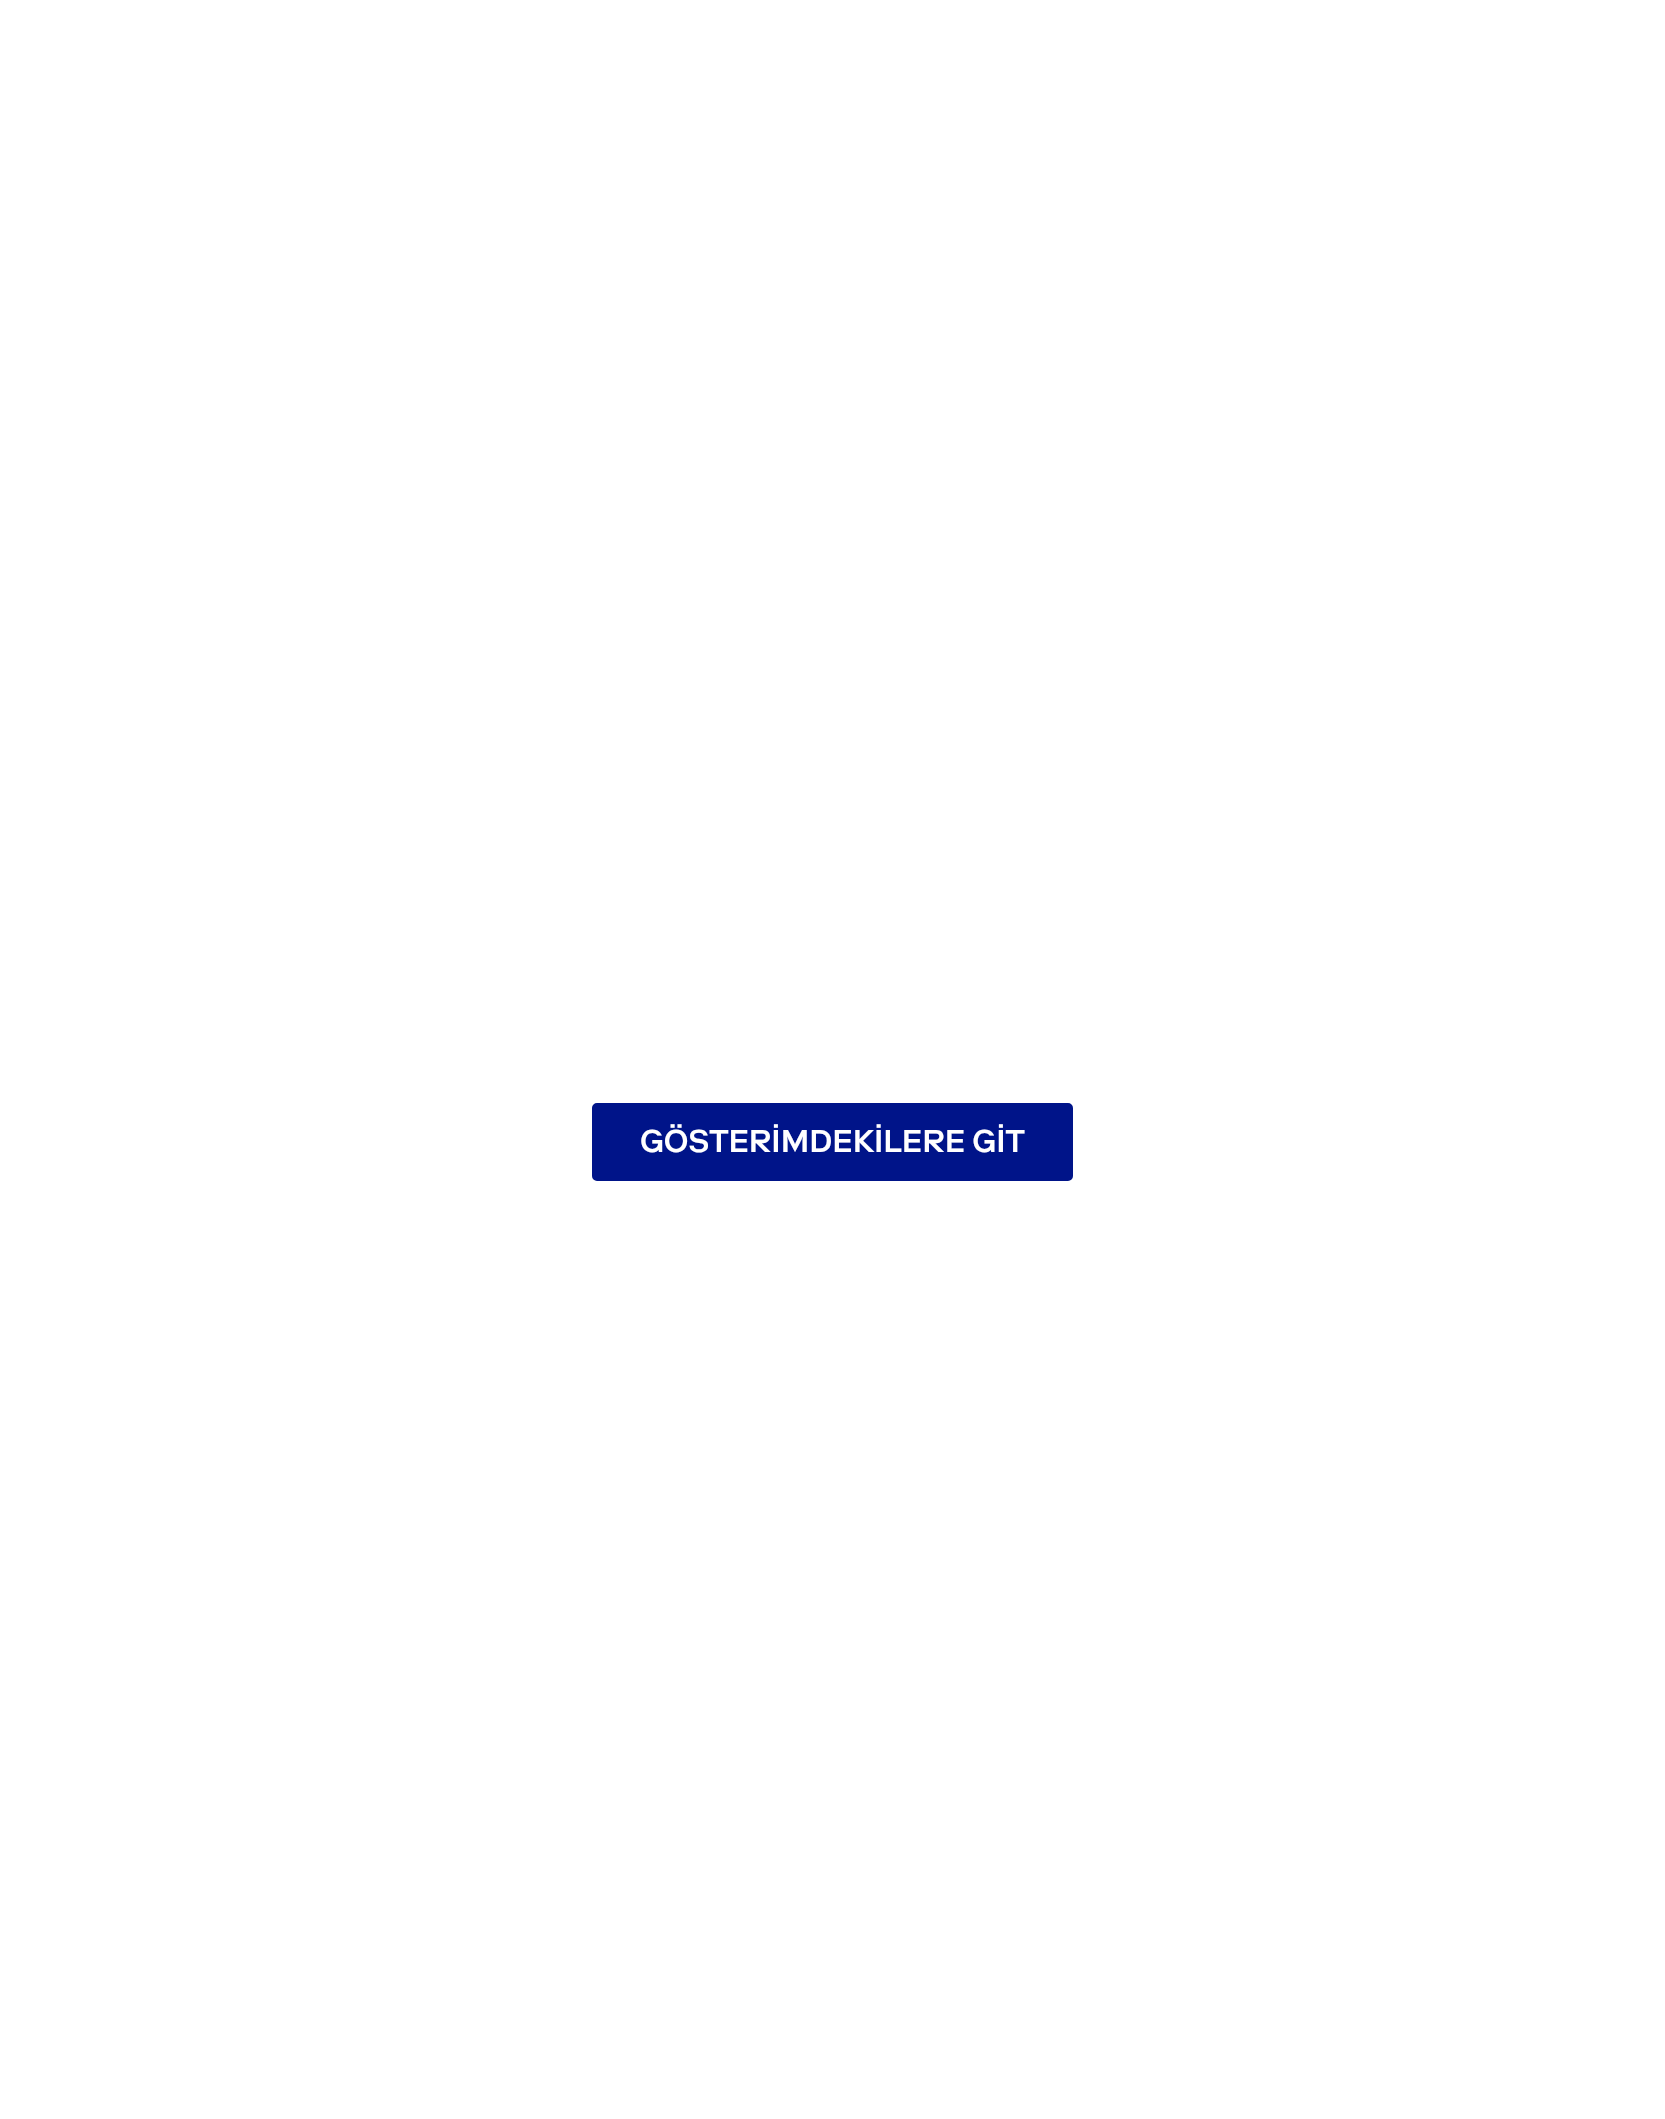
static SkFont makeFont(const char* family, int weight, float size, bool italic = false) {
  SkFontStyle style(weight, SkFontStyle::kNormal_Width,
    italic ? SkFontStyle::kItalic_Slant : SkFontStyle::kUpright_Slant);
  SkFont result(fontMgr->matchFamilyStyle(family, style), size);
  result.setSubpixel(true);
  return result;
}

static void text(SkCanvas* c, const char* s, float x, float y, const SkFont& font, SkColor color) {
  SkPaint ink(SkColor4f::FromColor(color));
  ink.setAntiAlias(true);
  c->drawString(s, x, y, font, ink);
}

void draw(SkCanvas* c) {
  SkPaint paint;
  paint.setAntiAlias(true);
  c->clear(0xffffffff);
  paint.setColor(0xff001489);
  c->drawRoundRect(SkRect::MakeLTRB(593, 1104, 1072, 1180), 4, 4, paint);
  paint.setStyle(SkPaint::kStroke_Style);
  paint.setStrokeWidth(2);
  c->drawRoundRect(SkRect::MakeLTRB(593, 1104, 1072, 1180), 4, 4, paint);
  SkFont face1 = makeFont("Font", 500, 31.5f);
  text(c, "GÖSTERİMDEKİLERE GİT", 640, 1152, face1, 0xffffffff);
}
